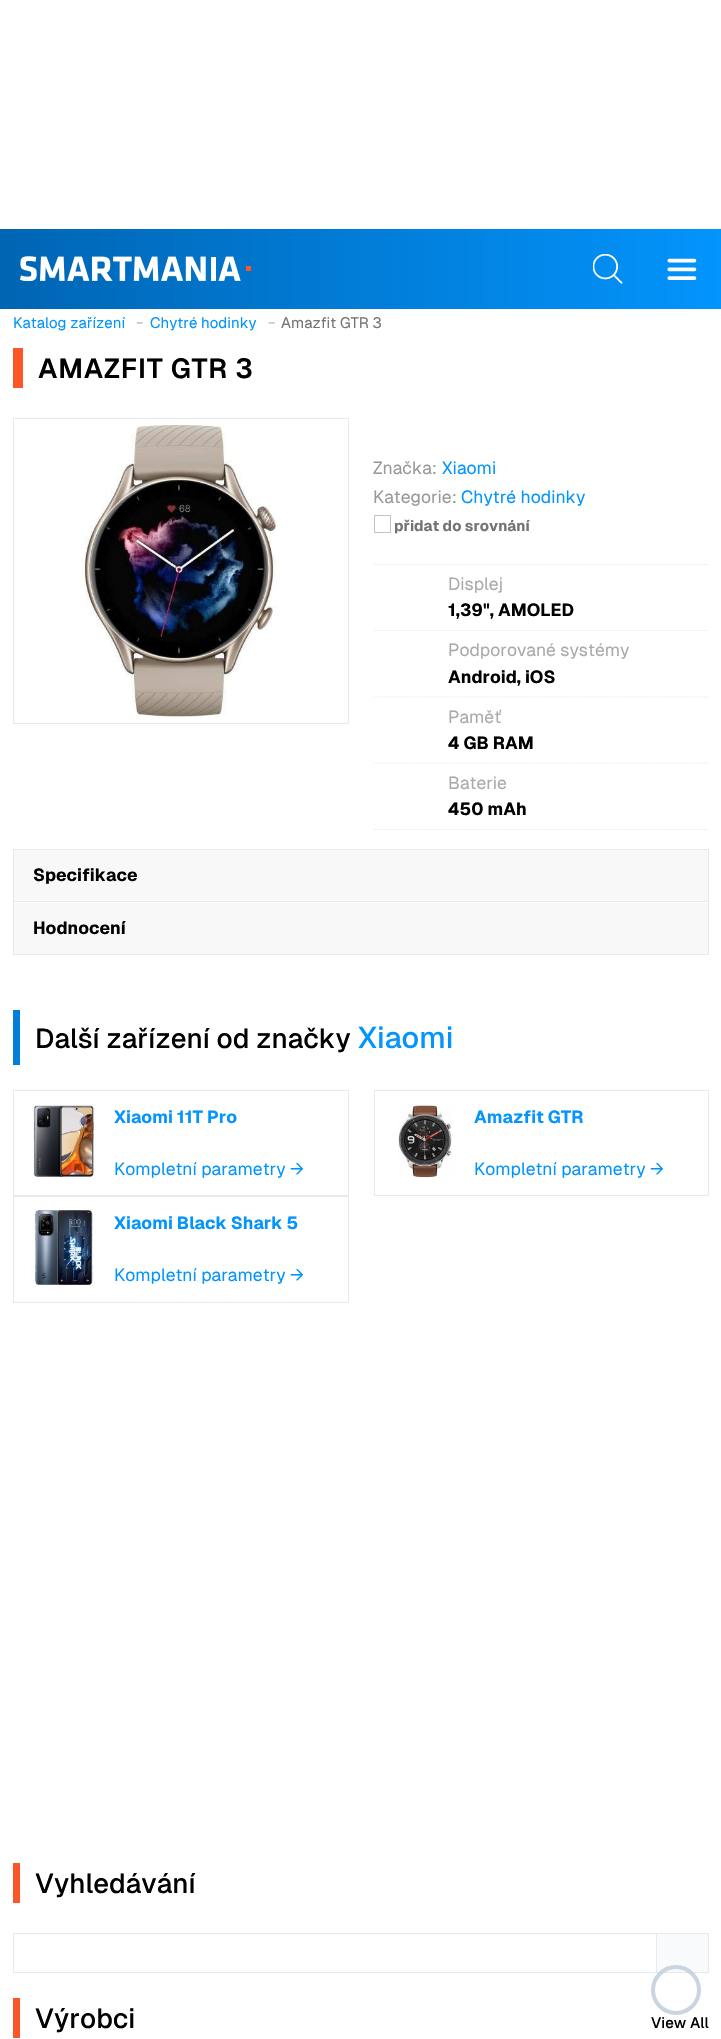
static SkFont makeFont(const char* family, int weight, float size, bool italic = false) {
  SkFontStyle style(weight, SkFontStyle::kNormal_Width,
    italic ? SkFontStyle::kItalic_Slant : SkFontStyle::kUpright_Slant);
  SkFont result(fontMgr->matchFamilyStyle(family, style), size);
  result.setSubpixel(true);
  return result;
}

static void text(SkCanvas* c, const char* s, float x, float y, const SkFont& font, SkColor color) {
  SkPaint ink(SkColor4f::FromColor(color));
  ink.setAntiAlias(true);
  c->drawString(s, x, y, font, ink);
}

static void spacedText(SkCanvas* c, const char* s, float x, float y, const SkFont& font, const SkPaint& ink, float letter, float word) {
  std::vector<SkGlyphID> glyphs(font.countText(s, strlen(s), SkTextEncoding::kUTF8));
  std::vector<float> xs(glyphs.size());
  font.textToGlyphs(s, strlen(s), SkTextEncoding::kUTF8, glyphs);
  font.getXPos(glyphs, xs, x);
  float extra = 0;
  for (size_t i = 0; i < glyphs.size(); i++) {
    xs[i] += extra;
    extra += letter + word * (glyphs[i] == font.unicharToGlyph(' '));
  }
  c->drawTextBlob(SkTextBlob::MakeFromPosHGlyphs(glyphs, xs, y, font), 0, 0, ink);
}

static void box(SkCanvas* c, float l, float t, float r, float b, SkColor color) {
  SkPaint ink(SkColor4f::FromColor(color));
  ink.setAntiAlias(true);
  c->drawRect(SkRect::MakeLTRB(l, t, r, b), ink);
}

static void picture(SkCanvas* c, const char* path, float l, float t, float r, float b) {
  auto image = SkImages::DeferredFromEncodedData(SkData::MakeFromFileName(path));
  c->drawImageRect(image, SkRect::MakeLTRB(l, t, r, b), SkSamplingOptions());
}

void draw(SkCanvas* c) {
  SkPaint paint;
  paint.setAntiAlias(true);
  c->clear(0xffffffff);
  {
    const SkColor colors[] = {0xff0065b3, 0xff0394fc};
    const float stops[] = {0, 1};
    const SkPoint ends[] = {{0, 269}, {721, 269}};
    paint.setShader(SkGradientShader::MakeLinear(ends, colors, stops, 2, SkTileMode::kClamp));
    paint.setAlpha(255);
  }
  c->drawRect(SkRect::MakeLTRB(0, 229, 721, 309), paint);
  picture(c, "img_01.png", 20, 256, 251, 281);
  picture(c, "img_02.png", 593, 254, 623, 284);
  picture(c, "img_03.png", 667, 258, 697, 263);
  picture(c, "img_04.png", 667, 267, 697, 272);
  picture(c, "img_05.png", 667, 276, 697, 280);
  SkFont face1 = makeFont("Geist", 400, 15);
  text(c, "Katalog zařízení", 13, 328, face1, 0xff0394fc);
  SkFont face2 = makeFont("Geist", 400, 17.5f);
  text(c, "-", 136, 328, face2, 0xffc1c2c3);
  text(c, "Chytré hodinky", 150, 328, face1, 0xff0394fc);
  text(c, "-", 268, 328, face2, 0xffc1c2c3);
  text(c, "Amazfit GTR 3", 281, 328, face1, 0xff727374);
  box(c, 13, 348, 23, 388, 0xfffb5628);
  SkFont face3 = makeFont("Geist", 600, 27.5f);
  paint.setShader(nullptr);
  paint.setColor(0xff000000);
  spacedText(c, "AMAZFIT GTR 3", 38, 378, face3, paint, 0.75f, 0);
  paint.setStyle(SkPaint::kStroke_Style);
  paint.setStrokeWidth(1);
  paint.setColor(0xffe8e9ea);
  c->drawRect(SkRect::MakeLTRB(13.5f, 418.5f, 348.5f, 723.5f), paint);
  picture(c, "img_06.png", 81, 425, 282, 717);
  text(c, "Značka:", 373, 474, face2, 0xff999999);
  text(c, "Xiaomi", 442, 474, face2, 0xff0394fc);
  text(c, "Kategorie:", 373, 503, face2, 0xff999999);
  text(c, "Chytré hodinky", 461, 503, face2, 0xff0394fc);
  paint.setColor(0xffc1c2c3);
  c->drawRect(SkRect::MakeLTRB(374.5f, 515.5f, 390.5f, 532.5f), paint);
  SkFont face4 = makeFont("Geist", 700, 15);
  text(c, "přidat do srovnání", 394, 531, face4, 0xff727374);
  paint.setStrokeWidth(1.2f);
  paint.setColor(0xffe8e9ea);
  paint.setPathEffect(SkDashPathEffect::Make({{1.25f, 1.25f}}, 0));
  c->drawPath(SkPathBuilder().moveTo(374, 564.5f).lineTo(709, 564.5f).detach(), paint);
  paint.setPathEffect(nullptr);
  paint.setPathEffect(SkDashPathEffect::Make({{1.25f, 1.25f}}, 0));
  c->drawPath(SkPathBuilder().moveTo(374, 630.5f).lineTo(709, 630.5f).detach(), paint);
  paint.setPathEffect(nullptr);
  text(c, "Displej", 448, 590, face2, 0xffaaaaaa);
  SkFont face5 = makeFont("Geist", 700, 17.5f);
  text(c, "1,39\", AMOLED", 448, 616, face5, 0xff000000);
  paint.setPathEffect(SkDashPathEffect::Make({{1.25f, 1.25f}}, 0));
  c->drawPath(SkPathBuilder().moveTo(374, 697).lineTo(709, 697).detach(), paint);
  paint.setPathEffect(nullptr);
  text(c, "Podporované systémy", 448, 656, face2, 0xffaaaaaa);
  text(c, "Android, iOS", 448, 683, face5, 0xff000000);
  paint.setPathEffect(SkDashPathEffect::Make({{1.25f, 1.25f}}, 0));
  c->drawPath(SkPathBuilder().moveTo(374, 763).lineTo(709, 763).detach(), paint);
  paint.setPathEffect(nullptr);
  text(c, "Paměť", 448, 723, face2, 0xffaaaaaa);
  text(c, "4 GB RAM", 448, 749, face5, 0xff000000);
  paint.setPathEffect(SkDashPathEffect::Make({{1.25f, 1.25f}}, 0));
  c->drawPath(SkPathBuilder().moveTo(374, 829.5f).lineTo(709, 829.5f).detach(), paint);
  paint.setPathEffect(nullptr);
  text(c, "Baterie", 448, 789, face2, 0xffaaaaaa);
  text(c, "450 mAh", 448, 815, face5, 0xff000000);
  box(c, 708, 849, 709, 955, 0xffe8e9ea);
  box(c, 13, 954, 709, 955, 0xffe8e9ea);
  box(c, 13, 849, 14, 955, 0xffe8e9ea);
  box(c, 14, 849, 708, 850, 0xffe8e9ea);
  box(c, 14, 850, 708, 901, 0xfff8f8f8);
  text(c, "Specifikace", 33, 881, face5, 0xff000000);
  box(c, 14, 901, 708, 902, 0xffe8e9ea);
  box(c, 14, 903, 708, 954, 0xfff8f8f8);
  text(c, "Hodnocení", 33, 934, face5, 0xff000000);
  box(c, 13, 1010, 20, 1065, 0xff027dd8);
  SkFont face6 = makeFont("Geist", 500, 27.5f);
  text(c, "Další zařízení od značky", 35, 1048, face6, 0xff000000);
  SkFont face7 = makeFont("Geist", 500, 30);
  text(c, "Xiaomi", 358, 1048, face7, 0xff0394fc);
  paint.setStrokeWidth(1);
  c->drawRect(SkRect::MakeLTRB(13.5f, 1090.5f, 348.5f, 1195.5f), paint);
  picture(c, "img_07.png", 31, 1104, 97, 1179);
  text(c, "Xiaomi 11T Pro", 114, 1123, face5, 0xff0394fc);
  text(c, "Kompletní parametry →", 114, 1175, face2, 0xff0394fc);
  c->drawRect(SkRect::MakeLTRB(374.5f, 1090.5f, 708.5f, 1195.5f), paint);
  picture(c, "img_08.png", 398, 1104, 453, 1179);
  text(c, "Amazfit GTR", 474, 1123, face5, 0xff0394fc);
  text(c, "Kompletní parametry →", 474, 1175, face2, 0xff0394fc);
  c->drawRect(SkRect::MakeLTRB(13.5f, 1196.5f, 348.5f, 1302.5f), paint);
  picture(c, "img_09.png", 31, 1210, 96, 1285);
  text(c, "Xiaomi Black Shark 5", 114, 1229, face5, 0xff0394fc);
  text(c, "Kompletní parametry →", 114, 1281, face2, 0xff0394fc);
  box(c, 13, 1863, 20, 1903, 0xfffb5628);
  text(c, "Vyhledávání", 35, 1893, face6, 0xff000000);
  c->drawRect(SkRect::MakeLTRB(13.5f, 1933.5f, 708.5f, 1972.5f), paint);
  paint.setStyle(SkPaint::kFill_Style);
  paint.setColor(0xfff9fafb);
  c->drawRect(SkRect::MakeLTRB(656.5f, 1933.5f, 708.5f, 1972.5f), paint);
  paint.setStyle(SkPaint::kStroke_Style);
  paint.setColor(0xffe8e9ea);
  c->drawRect(SkRect::MakeLTRB(656.5f, 1933.5f, 708.5f, 1972.5f), paint);
  box(c, 13, 1998, 20, 2038, 0xfffb5628);
  text(c, "Výrobci", 35, 2028, face6, 0xff000000);
  SkFont face8 = makeFont("Geist", 500, 15);
  text(c, "View All", 651, 2028, face8, 0xff000000);
  paint.setStrokeWidth(4);
  paint.setColor(0xffcbd5e0);
  c->drawCircle(676, 1990, 23, paint);
}
